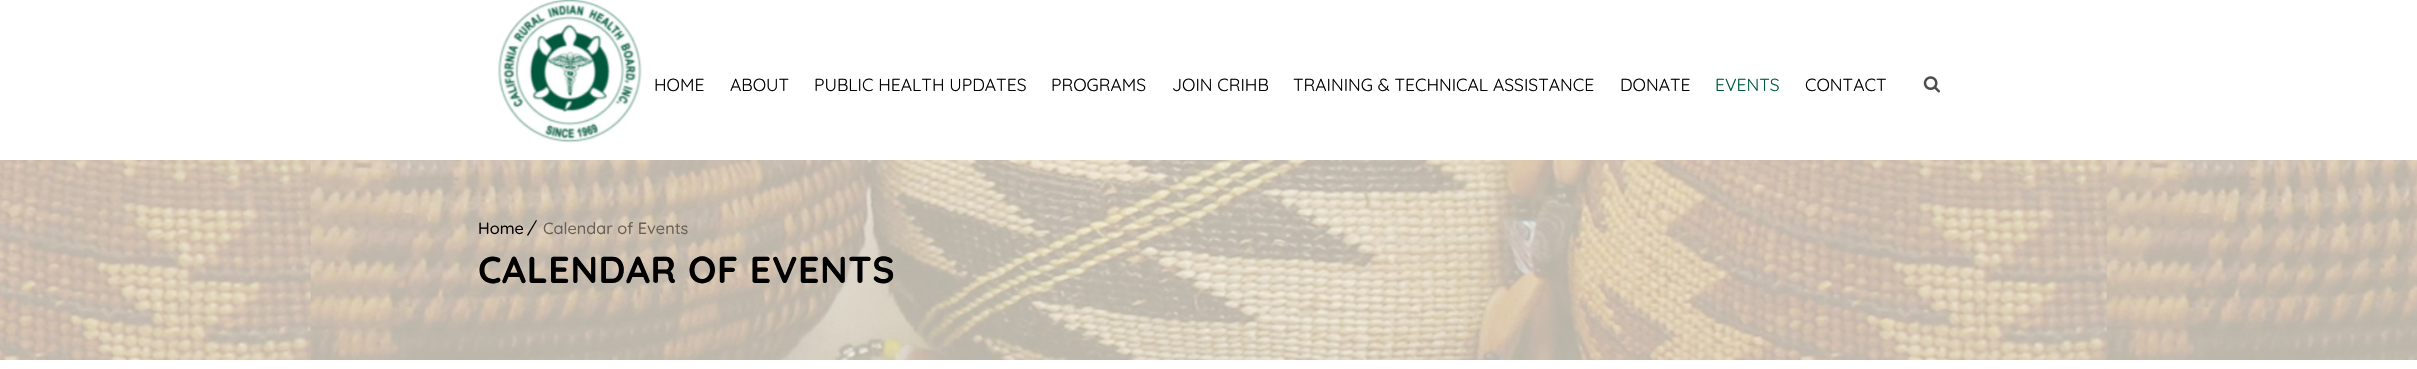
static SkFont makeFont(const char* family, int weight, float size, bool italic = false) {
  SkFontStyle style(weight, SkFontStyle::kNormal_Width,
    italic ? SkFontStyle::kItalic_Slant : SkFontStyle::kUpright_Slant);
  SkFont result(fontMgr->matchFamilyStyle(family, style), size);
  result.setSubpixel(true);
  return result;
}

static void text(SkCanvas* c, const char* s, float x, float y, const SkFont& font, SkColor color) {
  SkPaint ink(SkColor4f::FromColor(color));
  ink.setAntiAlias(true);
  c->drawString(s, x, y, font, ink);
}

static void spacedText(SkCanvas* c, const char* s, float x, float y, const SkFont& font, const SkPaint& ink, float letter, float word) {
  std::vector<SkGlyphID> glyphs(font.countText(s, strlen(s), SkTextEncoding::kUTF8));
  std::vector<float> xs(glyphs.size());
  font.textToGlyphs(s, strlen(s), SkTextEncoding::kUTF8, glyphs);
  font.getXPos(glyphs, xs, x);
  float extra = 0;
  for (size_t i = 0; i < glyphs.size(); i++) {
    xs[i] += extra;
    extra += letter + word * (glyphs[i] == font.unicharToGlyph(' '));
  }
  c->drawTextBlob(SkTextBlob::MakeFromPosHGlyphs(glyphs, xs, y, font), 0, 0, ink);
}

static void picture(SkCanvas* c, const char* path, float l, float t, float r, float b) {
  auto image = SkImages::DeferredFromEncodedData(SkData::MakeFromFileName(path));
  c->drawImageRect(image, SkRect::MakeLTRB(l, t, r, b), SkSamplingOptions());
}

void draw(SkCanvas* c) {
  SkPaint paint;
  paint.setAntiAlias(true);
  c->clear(0xffffffff);
  picture(c, "img_01.png", 498, 0, 642, 143);
  SkFont face1 = makeFont("Quicksand", 400, 17.5f);
  text(c, "HOME", 654, 91, face1, 0xff000000);
  text(c, "ABOUT", 730, 91, face1, 0xff000000);
  text(c, "PUBLIC HEALTH UPDATES", 814, 91, face1, 0xff000000);
  text(c, "PROGRAMS", 1051, 91, face1, 0xff000000);
  text(c, "JOIN CRIHB", 1172, 91, face1, 0xff000000);
  text(c, "TRAINING & TECHNICAL ASSISTANCE", 1293, 91, face1, 0xff000000);
  text(c, "DONATE", 1620, 91, face1, 0xff000000);
  text(c, "EVENTS", 1715, 91, face1, 0xff00583d);
  text(c, "CONTACT", 1805, 91, face1, 0xff000000);
  picture(c, "img_02.png", 1923, 76, 1940, 93);
  picture(c, "img_03.png", 0, 160, 2417, 360);
  SkFont face2 = makeFont("Quicksand", 500, 16.25f);
  text(c, "Home", 478, 234, face2, 0xff000000);
  paint.setColor(0xff000000);
  c->drawPath(SkPathBuilder().moveTo(536, 220).lineTo(537, 220.5f).lineTo(528, 236).lineTo(527, 235).close().detach(), paint);
  text(c, "Calendar of Events", 543, 234, face2, 0xff686159);
  SkFont face3 = makeFont("Quicksand", 700, 37.5f);
  spacedText(c, "CALENDAR OF EVENTS", 478, 283, face3, paint, 0.6f, 0);
}
